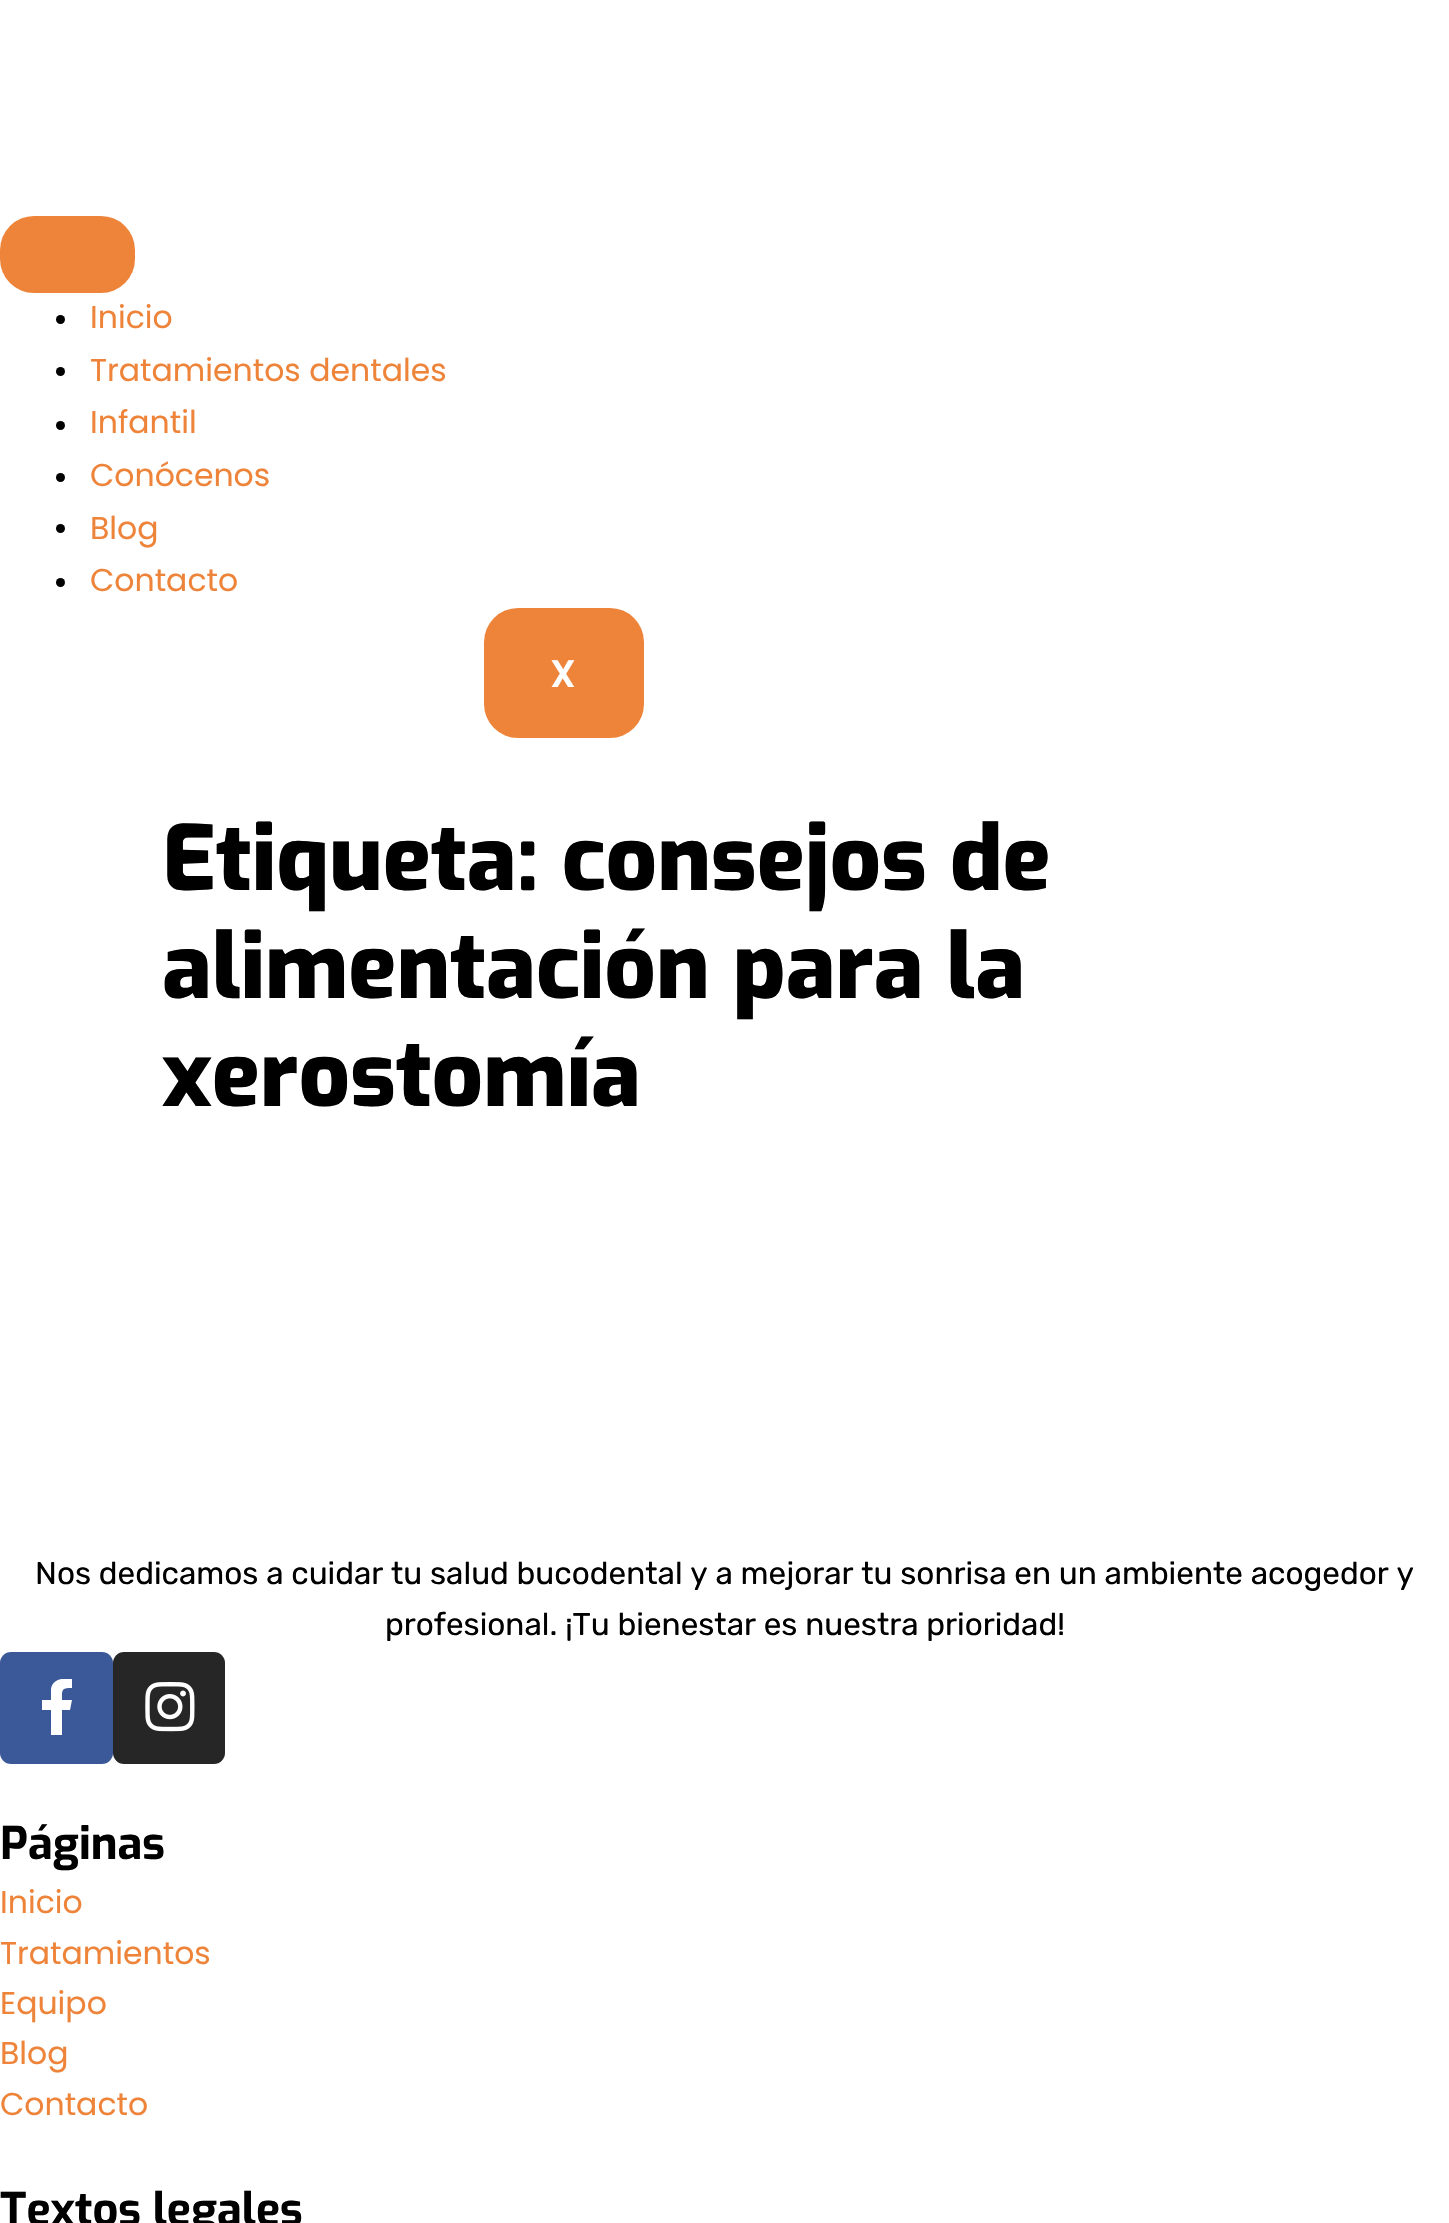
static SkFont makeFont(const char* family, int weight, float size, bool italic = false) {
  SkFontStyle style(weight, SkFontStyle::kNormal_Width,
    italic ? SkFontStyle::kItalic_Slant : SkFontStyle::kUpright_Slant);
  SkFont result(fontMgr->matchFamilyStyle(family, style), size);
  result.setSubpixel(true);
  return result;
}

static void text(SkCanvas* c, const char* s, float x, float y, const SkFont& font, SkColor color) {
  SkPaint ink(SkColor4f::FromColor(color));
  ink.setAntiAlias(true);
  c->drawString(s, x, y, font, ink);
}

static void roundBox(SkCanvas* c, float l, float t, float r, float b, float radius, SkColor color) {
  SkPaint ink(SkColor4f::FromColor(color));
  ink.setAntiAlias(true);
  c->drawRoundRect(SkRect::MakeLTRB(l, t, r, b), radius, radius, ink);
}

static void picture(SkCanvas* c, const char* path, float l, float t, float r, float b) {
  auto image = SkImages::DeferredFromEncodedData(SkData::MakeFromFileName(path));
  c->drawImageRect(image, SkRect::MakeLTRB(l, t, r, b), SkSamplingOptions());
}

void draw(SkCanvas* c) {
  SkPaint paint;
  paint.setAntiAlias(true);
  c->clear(0xffffffff);
  roundBox(c, 0, 216, 135, 293, 34, 0xffee843a);
  paint.setColor(0xff000000);
  c->drawCircle(60.5f, 319.5f, 4.5f, paint);
  SkFont face1 = makeFont("Poppins", 400, 31.5f);
  text(c, "Inicio", 90, 328, face1, 0xffee843a);
  c->drawCircle(60.5f, 371.5f, 4.5f, paint);
  text(c, "Tratamientos dentales", 90, 381, face1, 0xffee843a);
  c->drawCircle(60.5f, 425.5f, 4.5f, paint);
  text(c, "Infantil", 90, 433, face1, 0xffee843a);
  c->drawCircle(60.5f, 477.5f, 4.5f, paint);
  text(c, "Conócenos", 90, 486, face1, 0xffee843a);
  c->drawCircle(60.5f, 528.5f, 4.5f, paint);
  text(c, "Blog", 90, 539, face1, 0xffee843a);
  c->drawCircle(60.5f, 582.5f, 4.5f, paint);
  text(c, "Contacto", 90, 591, face1, 0xffee843a);
  roundBox(c, 484, 608, 644, 738, 34, 0xffee843a);
  SkFont face2 = makeFont("Exo", 700, 36);
  text(c, "X", 551, 687, face2, 0xffffffff);
  SkFont face3 = makeFont("Exo", 800, 90);
  text(c, "Etiqueta: consejos de", 162, 890, face3, 0xff000000);
  text(c, "alimentación para la", 162, 998, face3, 0xff000000);
  text(c, "xerostomía", 162, 1106, face3, 0xff000000);
  SkFont face4 = makeFont("Rubik", 400, 31.5f);
  text(c, "Nos dedicamos a cuidar tu salud bucodental y a mejorar tu sonrisa en un ambiente acogedor y", 35, 1584, face4, 0xff000000);
  text(c, "profesional. ¡Tu bienestar es nuestra prioridad!", 385, 1635, face4, 0xff000000);
  roundBox(c, 0, 1652, 113, 1764, 11, 0xff3b5998);
  c->save();
  c->clipRect(SkRect::MakeLTRB(29, 1679, 86, 1735));
  paint.setColor(0xffffffff);
  c->drawPath(SkPathBuilder().moveTo(70, 1710).lineTo(72, 1700).lineTo(62, 1700).cubicTo(62, 1690, 61, 1688, 72, 1688).lineTo(72, 1679).cubicTo(64, 1678, 53, 1678, 51, 1689).lineTo(51, 1700).lineTo(42, 1700).lineTo(42, 1710).lineTo(51, 1710).lineTo(51, 1735).lineTo(62, 1735).lineTo(62, 1710).close().detach(), paint);
  c->restore();
  roundBox(c, 113, 1652, 225, 1764, 11, 0xff262626);
  picture(c, "img_01.png", 145, 1682, 195, 1732);
  SkFont face5 = makeFont("Exo", 700, 45);
  text(c, "Páginas", 0, 1859, face5, 0xff000000);
  text(c, "Inicio", 0, 1913, face1, 0xffee843a);
  text(c, "Tratamientos", 0, 1964, face1, 0xffee843a);
  text(c, "Equipo", 0, 2014, face1, 0xffee843a);
  text(c, "Blog", 0, 2064, face1, 0xffee843a);
  text(c, "Contacto", 0, 2115, face1, 0xffee843a);
  text(c, "Textos legales", 0, 2225, face5, 0xff000000);
}
